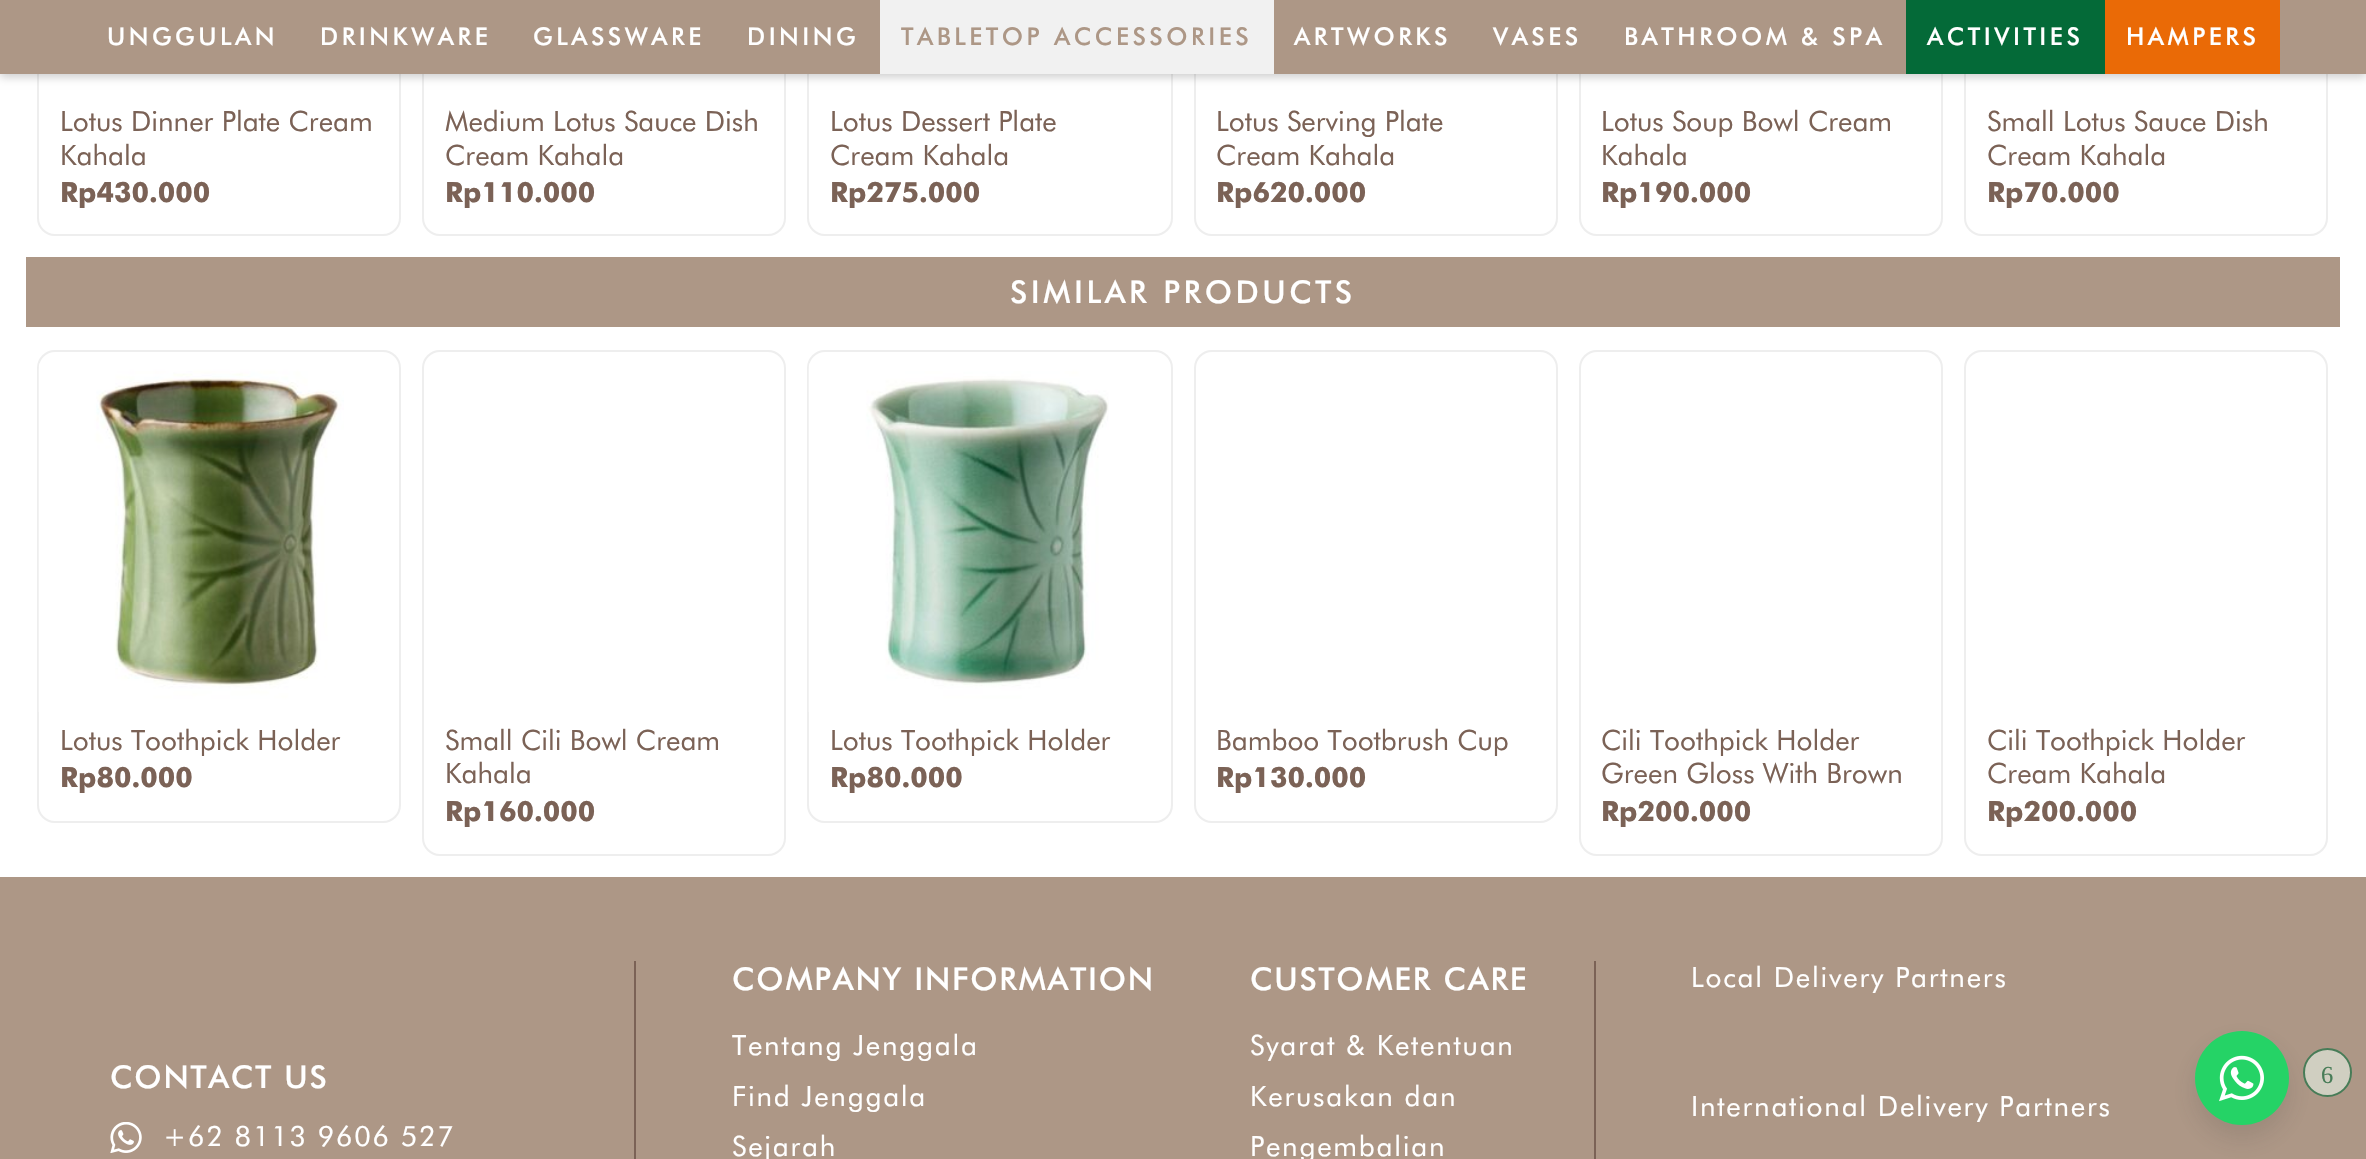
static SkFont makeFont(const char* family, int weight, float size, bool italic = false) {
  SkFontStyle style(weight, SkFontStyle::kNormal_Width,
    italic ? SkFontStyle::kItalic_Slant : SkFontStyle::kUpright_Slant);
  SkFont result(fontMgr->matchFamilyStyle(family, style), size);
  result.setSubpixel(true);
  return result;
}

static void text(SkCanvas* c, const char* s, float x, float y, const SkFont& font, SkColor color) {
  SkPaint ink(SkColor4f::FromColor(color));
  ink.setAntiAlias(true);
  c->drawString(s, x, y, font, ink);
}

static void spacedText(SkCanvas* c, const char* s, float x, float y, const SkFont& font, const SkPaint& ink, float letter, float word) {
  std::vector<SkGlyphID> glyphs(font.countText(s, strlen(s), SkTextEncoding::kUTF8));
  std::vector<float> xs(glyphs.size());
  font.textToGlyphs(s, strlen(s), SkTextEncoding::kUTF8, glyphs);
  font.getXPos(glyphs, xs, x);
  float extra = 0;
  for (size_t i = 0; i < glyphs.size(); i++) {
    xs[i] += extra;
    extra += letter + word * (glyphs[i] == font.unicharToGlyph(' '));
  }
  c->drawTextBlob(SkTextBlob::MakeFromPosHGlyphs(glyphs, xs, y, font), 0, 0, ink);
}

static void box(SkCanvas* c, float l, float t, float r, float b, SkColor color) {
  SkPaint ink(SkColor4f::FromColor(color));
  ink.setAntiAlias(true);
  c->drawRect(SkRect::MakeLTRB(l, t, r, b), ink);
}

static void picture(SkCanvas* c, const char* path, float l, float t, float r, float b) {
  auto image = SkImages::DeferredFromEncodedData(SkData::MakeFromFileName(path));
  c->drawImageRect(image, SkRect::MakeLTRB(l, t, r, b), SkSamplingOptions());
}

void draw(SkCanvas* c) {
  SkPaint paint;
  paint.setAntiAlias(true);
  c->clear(0xffffffff);
  paint.setStyle(SkPaint::kStroke_Style);
  paint.setStrokeWidth(2);
  paint.setColor(0xffeeeeee);
  c->drawRoundRect(SkRect::MakeLTRB(38, -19, 400, 235), 17, 17, paint);
  c->drawRoundRect(SkRect::MakeLTRB(423, -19, 785, 235), 17, 17, paint);
  c->drawRoundRect(SkRect::MakeLTRB(808, -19, 1172, 235), 17, 17, paint);
  c->drawRoundRect(SkRect::MakeLTRB(1195, -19, 1557, 235), 17, 17, paint);
  c->drawRoundRect(SkRect::MakeLTRB(1580, -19, 1942, 235), 17, 17, paint);
  c->drawRoundRect(SkRect::MakeLTRB(1965, -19, 2327, 235), 17, 17, paint);
  paint.setStyle(SkPaint::kFill_Style);
  paint.setColor(0x33000000);
  paint.setMaskFilter(SkMaskFilter::MakeBlur(kNormal_SkBlurStyle, 4.5f));
  c->drawRect(SkRect::MakeLTRB(0, 4, 2366, 77), paint);
  paint.setMaskFilter(nullptr);
  box(c, 0, 0, 2366, 74, 0xffad9786);
  SkFont face1 = makeFont("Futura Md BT", 500, 24.5f);
  paint.setColor(0xffffffff);
  spacedText(c, "UNGGULAN", 107, 45, face1, paint, 3.5f, 0);
  spacedText(c, "DRINKWARE", 320, 45, face1, paint, 3.5f, 0);
  spacedText(c, "GLASSWARE", 533, 45, face1, paint, 3.5f, 0);
  spacedText(c, "DINING", 747, 45, face1, paint, 3.5f, 0);
  box(c, 880, 0, 1274, 74, 0xfff1f1f1);
  paint.setColor(0xffad9786);
  spacedText(c, "TABLETOP ACCESSORIES", 901, 45, face1, paint, 3.5f, 0);
  paint.setColor(0xffffffff);
  spacedText(c, "ARTWORKS", 1294, 45, face1, paint, 3.5f, 0);
  spacedText(c, "VASES", 1493, 45, face1, paint, 3.5f, 0);
  spacedText(c, "BATHROOM & SPA", 1624, 45, face1, paint, 3.5f, 0);
  box(c, 1906, 0, 2105, 74, 0xff046a38);
  spacedText(c, "ACTIVITIES", 1927, 45, face1, paint, 3.5f, 0);
  box(c, 2105, 0, 2280, 74, 0xffea6a06);
  spacedText(c, "HAMPERS", 2126, 45, face1, paint, 3.5f, 0);
  SkFont face2 = makeFont("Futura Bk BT", 400, 28);
  text(c, "Lotus Dinner Plate Cream", 60, 131, face2, 0xff7b6256);
  text(c, "Kahala", 60, 165, face2, 0xff7b6256);
  SkFont face3 = makeFont("Futura Md BT", 700, 28);
  text(c, "Rp430.000", 60, 202, face3, 0xff7b6256);
  text(c, "Medium Lotus Sauce Dish", 445, 131, face2, 0xff7b6256);
  text(c, "Cream Kahala", 445, 165, face2, 0xff7b6256);
  text(c, "Rp110.000", 445, 202, face3, 0xff7b6256);
  text(c, "Lotus Dessert Plate", 830, 131, face2, 0xff7b6256);
  text(c, "Cream Kahala", 830, 165, face2, 0xff7b6256);
  text(c, "Rp275.000", 830, 202, face3, 0xff7b6256);
  text(c, "Lotus Serving Plate", 1216, 131, face2, 0xff7b6256);
  text(c, "Cream Kahala", 1216, 165, face2, 0xff7b6256);
  text(c, "Rp620.000", 1216, 202, face3, 0xff7b6256);
  text(c, "Lotus Soup Bowl Cream", 1601, 131, face2, 0xff7b6256);
  text(c, "Kahala", 1601, 165, face2, 0xff7b6256);
  text(c, "Rp190.000", 1601, 202, face3, 0xff7b6256);
  text(c, "Small Lotus Sauce Dish", 1987, 131, face2, 0xff7b6256);
  text(c, "Cream Kahala", 1987, 165, face2, 0xff7b6256);
  text(c, "Rp70.000", 1987, 202, face3, 0xff7b6256);
  box(c, 26, 257, 2340, 327, 0xffad9786);
  SkFont face4 = makeFont("Futura Md BT", 500, 31.5f);
  spacedText(c, "SIMILAR PRODUCTS", 1010, 303, face4, paint, 3.5f, 0);
  paint.setStyle(SkPaint::kStroke_Style);
  paint.setColor(0xffeeeeee);
  c->drawRoundRect(SkRect::MakeLTRB(38, 351, 400, 822), 17, 17, paint);
  picture(c, "img_01.png", 38, 363, 344, 712);
  text(c, "Lotus Toothpick Holder", 60, 750, face2, 0xff7b6256);
  text(c, "Rp80.000", 60, 787, face3, 0xff7b6256);
  c->drawRoundRect(SkRect::MakeLTRB(423, 351, 785, 855), 17, 17, paint);
  text(c, "Small Cili Bowl Cream", 445, 750, face2, 0xff7b6256);
  text(c, "Kahala", 445, 783, face2, 0xff7b6256);
  text(c, "Rp160.000", 445, 821, face3, 0xff7b6256);
  c->drawRoundRect(SkRect::MakeLTRB(808, 351, 1172, 822), 17, 17, paint);
  picture(c, "img_02.png", 808, 363, 1109, 712);
  text(c, "Lotus Toothpick Holder", 830, 750, face2, 0xff7b6256);
  text(c, "Rp80.000", 830, 787, face3, 0xff7b6256);
  c->drawRoundRect(SkRect::MakeLTRB(1195, 351, 1557, 822), 17, 17, paint);
  text(c, "Bamboo Tootbrush Cup", 1216, 750, face2, 0xff7b6256);
  text(c, "Rp130.000", 1216, 787, face3, 0xff7b6256);
  c->drawRoundRect(SkRect::MakeLTRB(1580, 351, 1942, 855), 17, 17, paint);
  text(c, "Cili Toothpick Holder", 1601, 750, face2, 0xff7b6256);
  text(c, "Green Gloss With Brown", 1601, 783, face2, 0xff7b6256);
  text(c, "Rp200.000", 1601, 821, face3, 0xff7b6256);
  c->drawRoundRect(SkRect::MakeLTRB(1965, 351, 2327, 855), 17, 17, paint);
  text(c, "Cili Toothpick Holder", 1987, 750, face2, 0xff7b6256);
  text(c, "Cream Kahala", 1987, 783, face2, 0xff7b6256);
  text(c, "Rp200.000", 1987, 821, face3, 0xff7b6256);
  box(c, 0, 877, 2366, 1159, 0xffad9786);
  paint.setStyle(SkPaint::kFill_Style);
  paint.setColor(0xffffffff);
  spacedText(c, "CONTACT US", 110, 1088, face4, paint, 1.75f, 0);
  picture(c, "img_03.png", 110, 1122, 142, 1153);
  spacedText(c, "+62 8113 9606 527", 163, 1146, face2, paint, 1.75f, 0);
  box(c, 1594, 961, 1596, 1159, 0xff7b6256);
  box(c, 634, 961, 636, 1159, 0xff7b6256);
  spacedText(c, "COMPANY INFORMATION", 732, 990, face4, paint, 1.75f, 0);
  c->save();
  c->clipRect(SkRect::MakeLTRB(732, 961, 1197, 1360));
  spacedText(c, "Tentang Jenggala", 732, 1055, face2, paint, 1.75f, 0);
  c->restore();
  spacedText(c, "Find Jenggala", 732, 1106, face2, paint, 1.75f, 0);
  spacedText(c, "Sejarah", 732, 1156, face2, paint, 1.75f, 0);
  spacedText(c, "CUSTOMER CARE", 1250, 990, face4, paint, 1.75f, 0);
  spacedText(c, "Syarat & Ketentuan", 1250, 1055, face2, paint, 1.75f, 0);
  spacedText(c, "Kerusakan dan", 1250, 1106, face2, paint, 1.75f, 0);
  spacedText(c, "Pengembalian", 1250, 1156, face2, paint, 1.75f, 0);
  spacedText(c, "Local Delivery Partners", 1691, 987, face2, paint, 1.75f, 0);
  spacedText(c, "International Delivery Partners", 1691, 1116, face2, paint, 1.75f, 0);
  paint.setColor(0x262e2e2e);
  paint.setMaskFilter(SkMaskFilter::MakeBlur(kNormal_SkBlurStyle, 14));
  c->drawRoundRect(SkRect::MakeLTRB(2195, 1043, 2289, 1138), 47, 47, paint);
  paint.setMaskFilter(nullptr);
  paint.setColor(0xff25d366);
  c->drawCircle(2242, 1078, 47, paint);
  picture(c, "img_04.png", 2219, 1055, 2264, 1102);
  paint.setColor(0xffd0cfc1);
  c->drawCircle(2327.5f, 1072.5f, 23.5f, paint);
  paint.setStyle(SkPaint::kStroke_Style);
  paint.setColor(0xff477c57);
  c->drawCircle(2327.5f, 1072.5f, 23.5f, paint);
  SkFont face5 = makeFont("Liberation Serif", 400, 24.5f);
  paint.setStyle(SkPaint::kFill_Style);
  paint.setColor(0xff487c57);
  spacedText(c, "6", 2321, 1083, face5, paint, 1.75f, 0);
}
